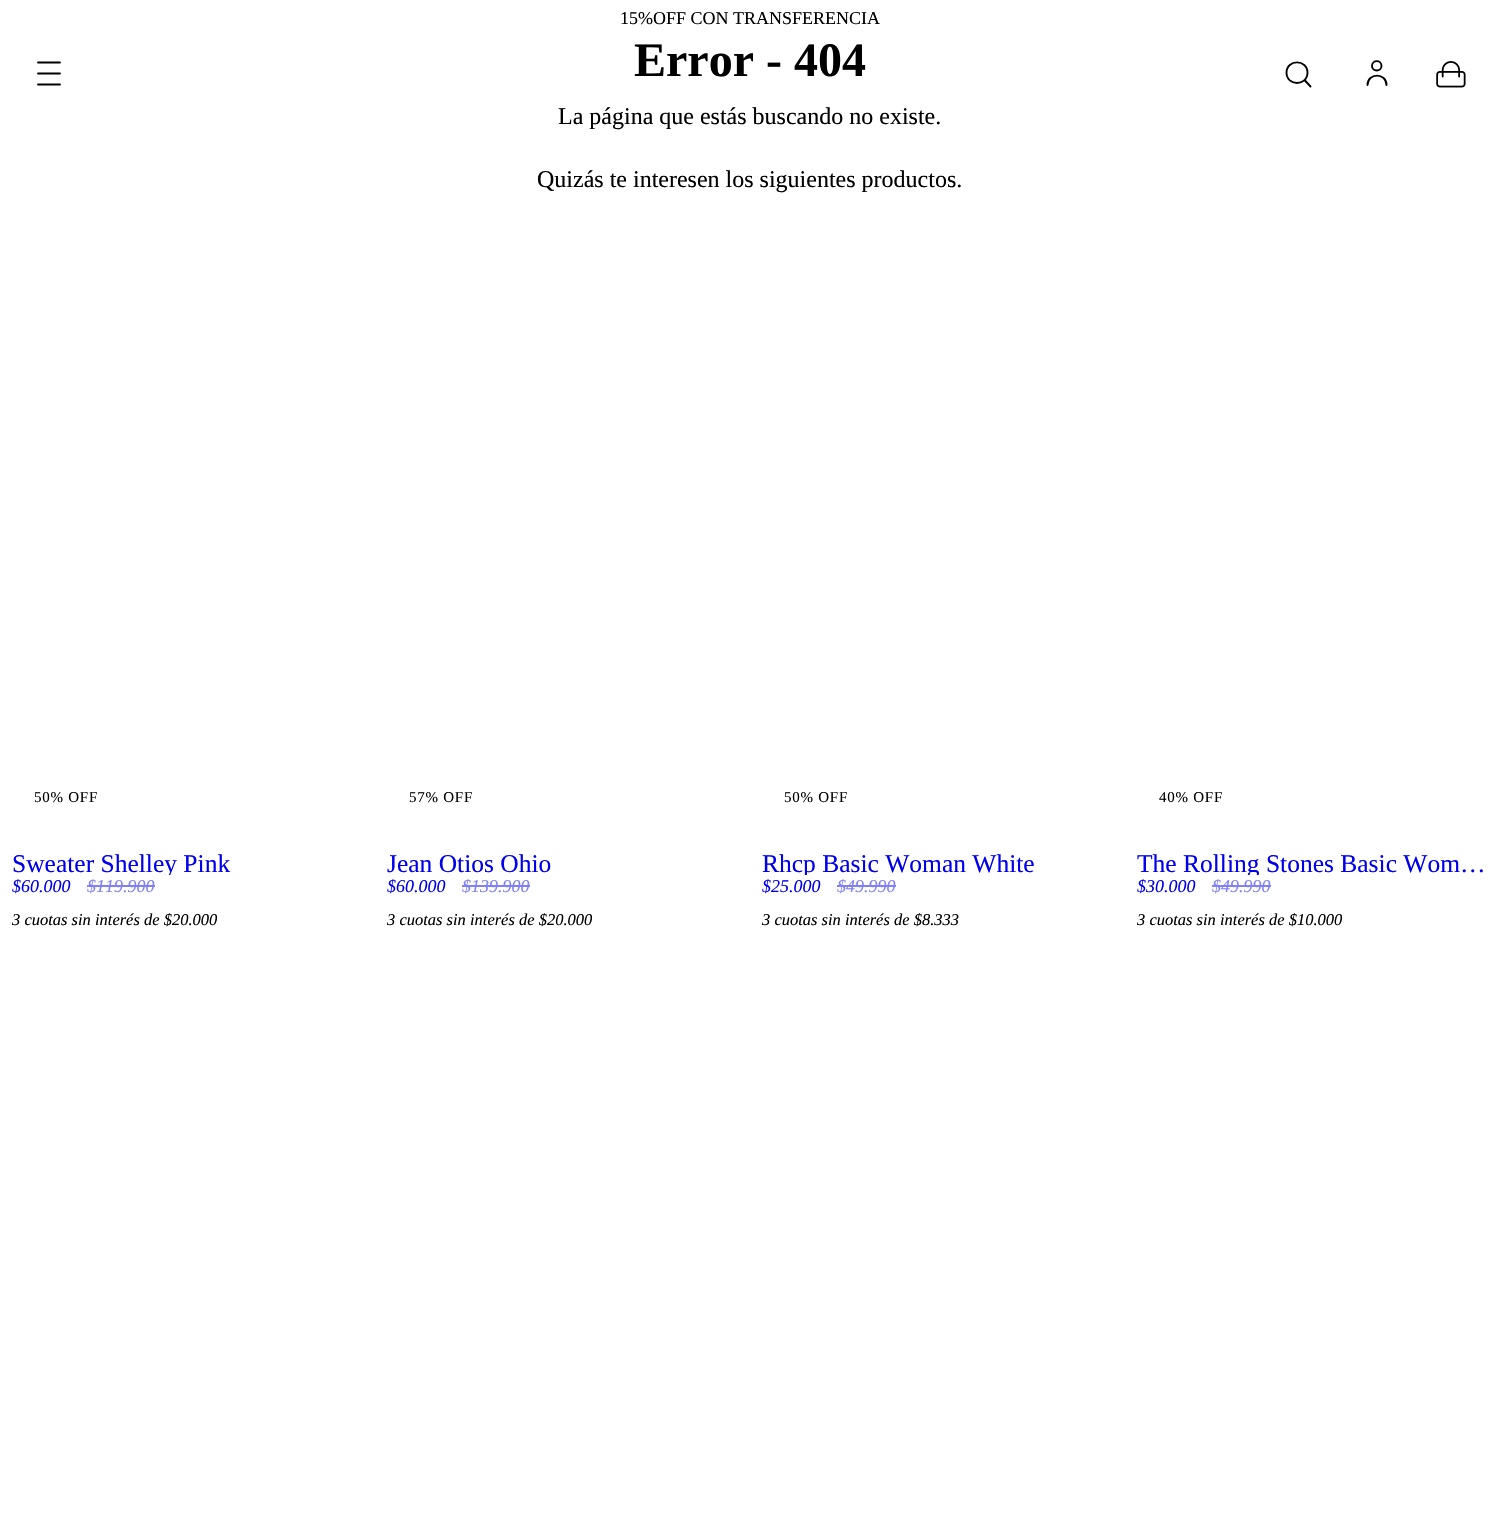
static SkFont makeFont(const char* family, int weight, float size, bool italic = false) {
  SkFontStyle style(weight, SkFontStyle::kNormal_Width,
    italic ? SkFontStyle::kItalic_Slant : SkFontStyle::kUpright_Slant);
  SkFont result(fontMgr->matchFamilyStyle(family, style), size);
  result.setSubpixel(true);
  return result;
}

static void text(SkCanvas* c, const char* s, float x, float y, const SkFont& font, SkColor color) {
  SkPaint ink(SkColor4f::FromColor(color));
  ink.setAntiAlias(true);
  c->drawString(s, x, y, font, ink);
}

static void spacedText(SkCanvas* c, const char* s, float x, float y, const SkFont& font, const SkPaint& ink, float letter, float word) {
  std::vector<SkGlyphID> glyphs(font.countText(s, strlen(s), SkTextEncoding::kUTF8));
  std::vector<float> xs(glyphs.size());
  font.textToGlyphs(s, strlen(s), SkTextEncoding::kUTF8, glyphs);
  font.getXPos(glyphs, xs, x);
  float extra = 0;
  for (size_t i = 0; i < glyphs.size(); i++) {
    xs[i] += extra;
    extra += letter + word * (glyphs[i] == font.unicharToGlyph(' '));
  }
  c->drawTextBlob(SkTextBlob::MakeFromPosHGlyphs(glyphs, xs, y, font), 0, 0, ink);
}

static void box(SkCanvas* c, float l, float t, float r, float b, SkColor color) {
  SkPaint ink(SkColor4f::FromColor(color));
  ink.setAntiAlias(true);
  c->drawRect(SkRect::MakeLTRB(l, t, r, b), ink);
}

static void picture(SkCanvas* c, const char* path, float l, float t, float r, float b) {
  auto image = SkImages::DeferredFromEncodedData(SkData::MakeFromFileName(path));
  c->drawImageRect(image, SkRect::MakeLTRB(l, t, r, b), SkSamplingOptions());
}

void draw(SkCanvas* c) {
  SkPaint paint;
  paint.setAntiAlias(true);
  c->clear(0xffffffff);
  SkFont face1 = makeFont("Liberation Serif", 400, 18);
  text(c, "15%OFF CON TRANSFERENCIA", 620, 24, face1, 0xff000000);
  paint.setStyle(SkPaint::kStroke_Style);
  paint.setStrokeWidth(1.8f);
  paint.setStrokeCap(SkPaint::kRound_Cap);
  paint.setStrokeJoin(SkPaint::kRound_Join);
  paint.setColor(0xff000000);
  c->drawPath(SkPathBuilder().moveTo(38, 62.5f).lineTo(60, 62.5f).moveTo(38, 73.5f).lineTo(60, 73.5f).moveTo(38, 84.5f).lineTo(60, 84.5f).detach(), paint);
  paint.setStrokeWidth(1.9f);
  c->drawPath(SkPathBuilder().moveTo(1307.5f, 72.5f).cubicTo(1307.5f, 86.5f, 1286.5f, 86.5f, 1286.5f, 72.5f).cubicTo(1286.5f, 59, 1307.5f, 59, 1307.5f, 72.5f).close().moveTo(1304.5f, 80).lineTo(1310.5f, 86.5f).detach(), paint);
  c->drawPath(SkPathBuilder().moveTo(1381.5f, 66).cubicTo(1381.5f, 72, 1372, 72, 1372, 66).cubicTo(1372, 59.5f, 1381.5f, 59.5f, 1381.5f, 66).close().moveTo(1367.5f, 85).cubicTo(1367.5f, 72.5f, 1386.5f, 72.5f, 1386.5f, 85).detach(), paint);
  picture(c, "img_01.png", 1436, 61, 1466, 88);
  SkFont face2 = makeFont("Liberation Serif", 700, 48);
  text(c, "Error - 404", 634, 76, face2, 0xff000000);
  SkFont face3 = makeFont("Liberation Serif", 400, 24);
  text(c, "La página que estás buscando no existe.", 558, 124, face3, 0xff000000);
  text(c, "Quizás te interesen los siguientes productos.", 537, 187, face3, 0xff000000);
  SkFont face4 = makeFont("Liberation Serif", 400, 15);
  paint.setStyle(SkPaint::kFill_Style);
  spacedText(c, "50% OFF", 34, 802, face4, paint, 0.75f, 0);
  c->save();
  c->clipRect(SkRect::MakeLTRB(12, 839, 363, 875));
  SkFont face5 = makeFont("Liberation Serif", 400, 25.5f);
  text(c, "Sweater Shelley Pink", 12, 872, face5, 0xff0000ee);
  c->restore();
  SkFont face6 = makeFont("Liberation Serif", 400, 18, true);
  text(c, "$60.000", 12, 892, face6, 0xff0000ee);
  text(c, "$119.900", 87, 892, face6, 0xff8080f7);
  box(c, 87, 885, 155, 887, 0xff8080f7);
  SkFont face7 = makeFont("Liberation Serif", 400, 16.5f, true);
  text(c, "3 cuotas sin interés de $20.000", 12, 925, face7, 0xff000000);
  spacedText(c, "57% OFF", 409, 802, face4, paint, 0.75f, 0);
  text(c, "Jean Otios Ohio", 387, 872, face5, 0xff0000ee);
  text(c, "$60.000", 387, 892, face6, 0xff0000ee);
  text(c, "$139.900", 462, 892, face6, 0xff8080f7);
  box(c, 462, 885, 530, 887, 0xff8080f7);
  text(c, "3 cuotas sin interés de $20.000", 387, 925, face7, 0xff000000);
  spacedText(c, "50% OFF", 784, 802, face4, paint, 0.75f, 0);
  c->save();
  c->clipRect(SkRect::MakeLTRB(762, 839, 1113, 875));
  text(c, "Rhcp Basic Woman White", 762, 872, face5, 0xff0000ee);
  c->restore();
  text(c, "$25.000", 762, 892, face6, 0xff0000ee);
  text(c, "$49.990", 837, 892, face6, 0xff8080f7);
  box(c, 837, 885, 896, 887, 0xff8080f7);
  text(c, "3 cuotas sin interés de $8.333", 762, 925, face7, 0xff000000);
  spacedText(c, "40% OFF", 1159, 802, face4, paint, 0.75f, 0);
  c->save();
  c->clipRect(SkRect::MakeLTRB(1137, 839, 1488, 875));
  text(c, "The Rolling Stones Basic Wom…", 1137, 872, face5, 0xff0000ee);
  c->restore();
  text(c, "$30.000", 1137, 892, face6, 0xff0000ee);
  text(c, "$49.990", 1212, 892, face6, 0xff8080f7);
  box(c, 1212, 885, 1271, 887, 0xff8080f7);
  text(c, "3 cuotas sin interés de $10.000", 1137, 925, face7, 0xff000000);
}
